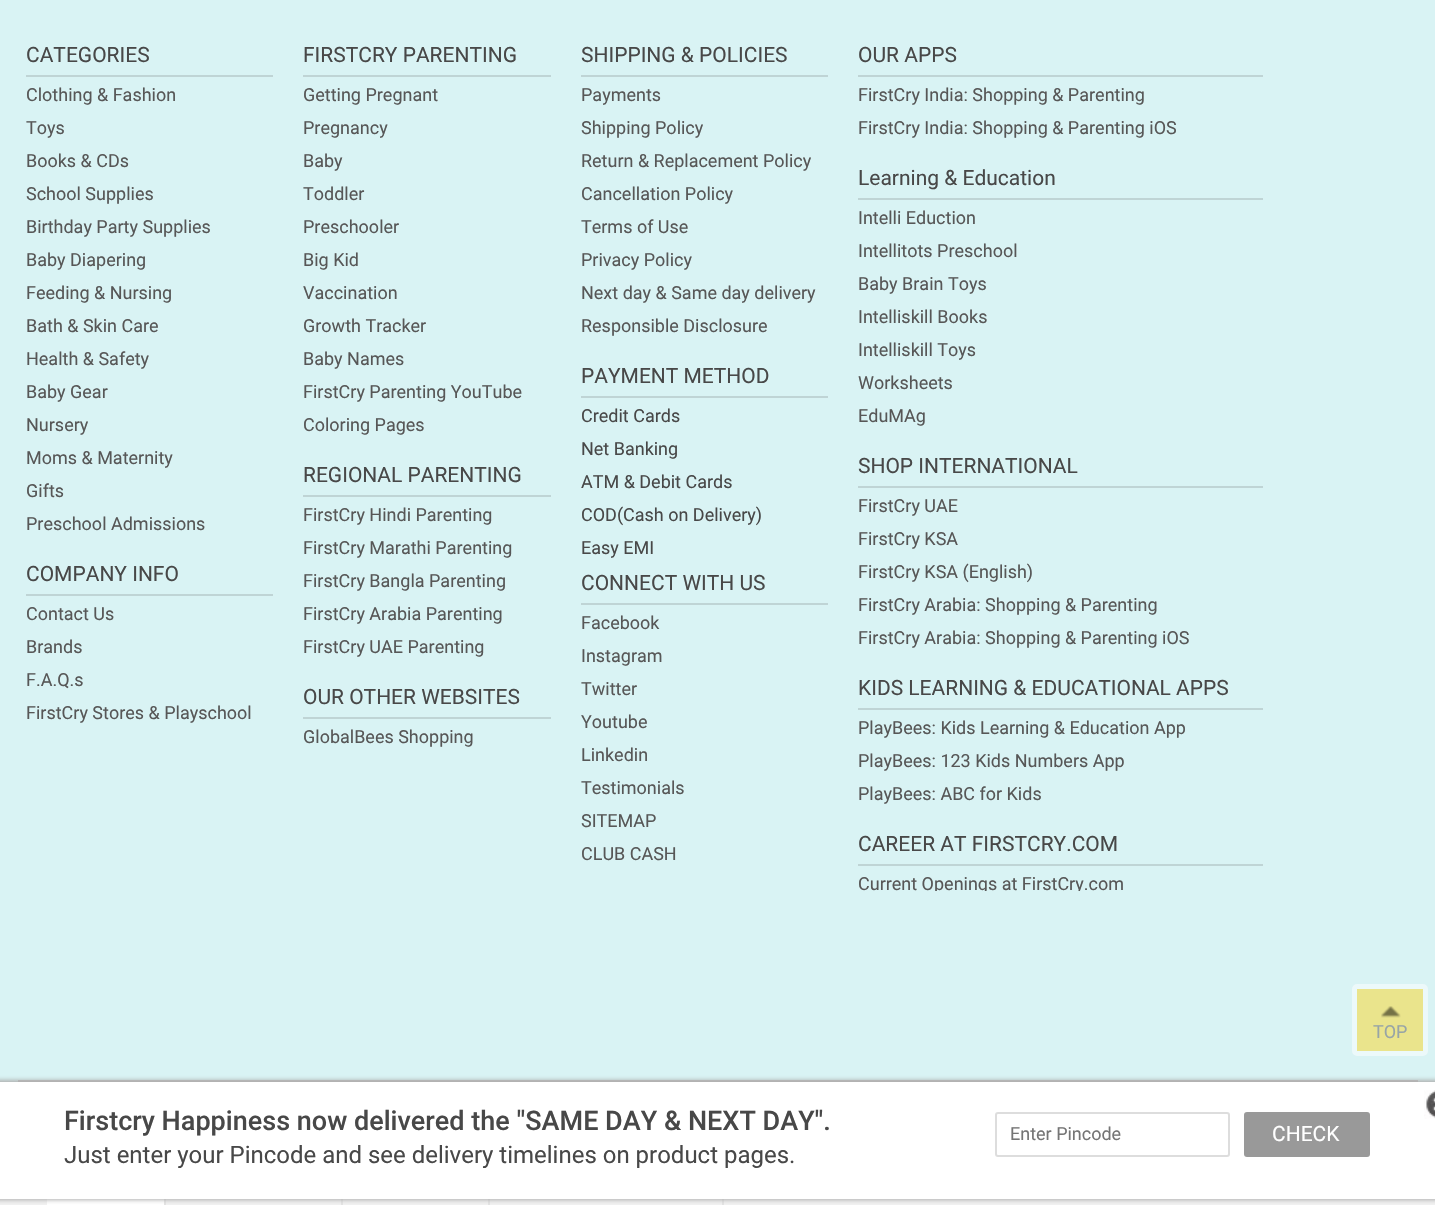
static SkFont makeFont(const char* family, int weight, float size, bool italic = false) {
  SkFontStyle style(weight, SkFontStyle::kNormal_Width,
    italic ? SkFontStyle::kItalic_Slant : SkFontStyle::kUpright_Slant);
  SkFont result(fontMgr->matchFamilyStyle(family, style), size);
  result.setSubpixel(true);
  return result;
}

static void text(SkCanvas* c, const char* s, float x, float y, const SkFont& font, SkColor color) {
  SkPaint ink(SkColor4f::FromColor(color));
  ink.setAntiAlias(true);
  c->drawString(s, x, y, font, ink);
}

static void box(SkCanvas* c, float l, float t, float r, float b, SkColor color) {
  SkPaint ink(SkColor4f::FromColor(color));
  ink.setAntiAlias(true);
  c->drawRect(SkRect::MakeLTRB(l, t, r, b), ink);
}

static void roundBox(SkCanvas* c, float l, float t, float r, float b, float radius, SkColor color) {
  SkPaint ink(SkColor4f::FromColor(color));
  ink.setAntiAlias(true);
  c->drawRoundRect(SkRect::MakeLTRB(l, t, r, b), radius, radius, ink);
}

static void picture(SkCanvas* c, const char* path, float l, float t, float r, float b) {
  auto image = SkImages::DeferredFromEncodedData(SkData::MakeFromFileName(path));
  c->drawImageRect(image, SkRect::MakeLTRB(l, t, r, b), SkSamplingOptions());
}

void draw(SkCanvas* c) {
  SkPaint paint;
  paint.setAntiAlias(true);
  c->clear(0xffd9f3f4);
  box(c, 26, 75, 273, 77, 0xffbfd4d5);
  SkFont face1 = makeFont("Roboto", 400, 21);
  text(c, "CATEGORIES", 26, 62, face1, 0xff484848);
  SkFont face2 = makeFont("Roboto", 400, 18);
  text(c, "Clothing & Fashion", 26, 101, face2, 0xff575757);
  text(c, "Toys", 26, 134, face2, 0xff575757);
  text(c, "Books & CDs", 26, 167, face2, 0xff575757);
  text(c, "School Supplies", 26, 200, face2, 0xff575757);
  text(c, "Birthday Party Supplies", 26, 233, face2, 0xff575757);
  text(c, "Baby Diapering", 26, 266, face2, 0xff575757);
  text(c, "Feeding & Nursing", 26, 299, face2, 0xff575757);
  text(c, "Bath & Skin Care", 26, 332, face2, 0xff575757);
  text(c, "Health & Safety", 26, 365, face2, 0xff575757);
  text(c, "Baby Gear", 26, 398, face2, 0xff575757);
  text(c, "Nursery", 26, 431, face2, 0xff575757);
  text(c, "Moms & Maternity", 26, 464, face2, 0xff575757);
  text(c, "Gifts", 26, 497, face2, 0xff575757);
  text(c, "Preschool Admissions", 26, 530, face2, 0xff575757);
  box(c, 26, 594, 273, 596, 0xffbfd4d5);
  text(c, "COMPANY INFO", 26, 581, face1, 0xff484848);
  text(c, "Contact Us", 26, 620, face2, 0xff575757);
  text(c, "Brands", 26, 653, face2, 0xff575757);
  text(c, "F.A.Q.s", 26, 686, face2, 0xff575757);
  text(c, "FirstCry Stores & Playschool", 26, 719, face2, 0xff575757);
  box(c, 303, 75, 551, 77, 0xffbfd4d5);
  text(c, "FIRSTCRY PARENTING", 303, 62, face1, 0xff484848);
  text(c, "Getting Pregnant", 303, 101, face2, 0xff575757);
  text(c, "Pregnancy", 303, 134, face2, 0xff575757);
  text(c, "Baby", 303, 167, face2, 0xff575757);
  text(c, "Toddler", 303, 200, face2, 0xff575757);
  text(c, "Preschooler", 303, 233, face2, 0xff575757);
  text(c, "Big Kid", 303, 266, face2, 0xff575757);
  text(c, "Vaccination", 303, 299, face2, 0xff575757);
  text(c, "Growth Tracker", 303, 332, face2, 0xff575757);
  text(c, "Baby Names", 303, 365, face2, 0xff575757);
  text(c, "FirstCry Parenting YouTube", 303, 398, face2, 0xff575757);
  text(c, "Coloring Pages", 303, 431, face2, 0xff575757);
  box(c, 303, 495, 551, 497, 0xffbfd4d5);
  text(c, "REGIONAL PARENTING", 303, 482, face1, 0xff484848);
  text(c, "FirstCry Hindi Parenting", 303, 521, face2, 0xff575757);
  text(c, "FirstCry Marathi Parenting", 303, 554, face2, 0xff575757);
  text(c, "FirstCry Bangla Parenting", 303, 587, face2, 0xff575757);
  text(c, "FirstCry Arabia Parenting", 303, 620, face2, 0xff575757);
  text(c, "FirstCry UAE Parenting", 303, 653, face2, 0xff575757);
  box(c, 303, 717, 551, 719, 0xffbfd4d5);
  text(c, "OUR OTHER WEBSITES", 303, 704, face1, 0xff484848);
  text(c, "GlobalBees Shopping", 303, 743, face2, 0xff575757);
  box(c, 581, 75, 828, 77, 0xffbfd4d5);
  text(c, "SHIPPING & POLICIES", 581, 62, face1, 0xff484848);
  text(c, "Payments", 581, 101, face2, 0xff575757);
  text(c, "Shipping Policy", 581, 134, face2, 0xff575757);
  text(c, "Return & Replacement Policy", 581, 167, face2, 0xff575757);
  text(c, "Cancellation Policy", 581, 200, face2, 0xff575757);
  text(c, "Terms of Use", 581, 233, face2, 0xff575757);
  text(c, "Privacy Policy", 581, 266, face2, 0xff575757);
  text(c, "Next day & Same day delivery", 581, 299, face2, 0xff575757);
  text(c, "Responsible Disclosure", 581, 332, face2, 0xff575757);
  box(c, 581, 396, 828, 398, 0xffbfd4d5);
  text(c, "PAYMENT METHOD", 581, 383, face1, 0xff484848);
  text(c, "Credit Cards", 581, 422, face2, 0xff484848);
  text(c, "Net Banking", 581, 455, face2, 0xff484848);
  text(c, "ATM & Debit Cards", 581, 488, face2, 0xff484848);
  text(c, "COD(Cash on Delivery)", 581, 521, face2, 0xff484848);
  text(c, "Easy EMI", 581, 554, face2, 0xff484848);
  box(c, 581, 603, 828, 605, 0xffbfd4d5);
  text(c, "CONNECT WITH US", 581, 590, face1, 0xff484848);
  text(c, "Facebook", 581, 629, face2, 0xff575757);
  text(c, "Instagram", 581, 662, face2, 0xff575757);
  text(c, "Twitter", 581, 695, face2, 0xff575757);
  text(c, "Youtube", 581, 728, face2, 0xff575757);
  text(c, "Linkedin", 581, 761, face2, 0xff575757);
  text(c, "Testimonials", 581, 794, face2, 0xff575757);
  text(c, "SITEMAP", 581, 827, face2, 0xff575757);
  text(c, "CLUB CASH", 581, 860, face2, 0xff575757);
  box(c, 858, 75, 1263, 77, 0xffbfd4d5);
  text(c, "OUR APPS", 858, 62, face1, 0xff484848);
  text(c, "FirstCry India: Shopping & Parenting", 858, 101, face2, 0xff575757);
  text(c, "FirstCry India: Shopping & Parenting iOS", 858, 134, face2, 0xff575757);
  box(c, 858, 198, 1263, 200, 0xffbfd4d5);
  text(c, "Learning & Education", 858, 185, face1, 0xff484848);
  text(c, "Intelli Eduction", 858, 224, face2, 0xff575757);
  text(c, "Intellitots Preschool", 858, 257, face2, 0xff575757);
  text(c, "Baby Brain Toys", 858, 290, face2, 0xff575757);
  text(c, "Intelliskill Books", 858, 323, face2, 0xff575757);
  text(c, "Intelliskill Toys", 858, 356, face2, 0xff575757);
  text(c, "Worksheets", 858, 389, face2, 0xff575757);
  text(c, "EduMAg", 858, 422, face2, 0xff575757);
  box(c, 858, 486, 1263, 488, 0xffbfd4d5);
  text(c, "SHOP INTERNATIONAL", 858, 473, face1, 0xff484848);
  text(c, "FirstCry UAE", 858, 512, face2, 0xff575757);
  text(c, "FirstCry KSA", 858, 545, face2, 0xff575757);
  text(c, "FirstCry KSA (English)", 858, 578, face2, 0xff575757);
  text(c, "FirstCry Arabia: Shopping & Parenting", 858, 611, face2, 0xff575757);
  text(c, "FirstCry Arabia: Shopping & Parenting iOS", 858, 644, face2, 0xff575757);
  box(c, 858, 708, 1263, 710, 0xffbfd4d5);
  text(c, "KIDS LEARNING & EDUCATIONAL APPS", 858, 695, face1, 0xff484848);
  text(c, "PlayBees: Kids Learning & Education App", 858, 734, face2, 0xff575757);
  text(c, "PlayBees: 123 Kids Numbers App", 858, 767, face2, 0xff575757);
  text(c, "PlayBees: ABC for Kids", 858, 800, face2, 0xff575757);
  box(c, 858, 864, 1263, 866, 0xffbfd4d5);
  text(c, "CAREER AT FIRSTCRY.COM", 858, 851, face1, 0xff484848);
  text(c, "Current Openings at FirstCry.com", 858, 890, face2, 0xff575757);
  box(c, 935, 891, 1080, 894, 0xffd9f3f4);
  box(c, 18, 1080, 1418, 1082, 0xffbdbdbd);
  paint.setColor(0xffeae48c);
  c->drawRoundRect(SkRect::MakeLTRB(1354.5f, 986.5f, 1425.5f, 1053.5f), 2.5f, 2.5f, paint);
  paint.setStyle(SkPaint::kStroke_Style);
  paint.setStrokeWidth(5);
  paint.setColor(0xffecf9fa);
  c->drawRoundRect(SkRect::MakeLTRB(1354.5f, 986.5f, 1425.5f, 1053.5f), 2.5f, 2.5f, paint);
  picture(c, "img_01.png", 1381, 1006, 1401, 1018);
  text(c, "TOP", 1373, 1038, face2, 0xff98a5a6);
  box(c, 0, 1199, 1435, 1205, 0xfff1f1f1);
  box(c, 47, 1199, 164, 1205, 0xffffffff);
  box(c, 164, 1199, 166, 1205, 0xffe3e3e3);
  box(c, 341, 1199, 343, 1205, 0xffe3e3e3);
  box(c, 488, 1199, 490, 1205, 0xffe3e3e3);
  box(c, 722, 1199, 724, 1205, 0xffe3e3e3);
  paint.setStyle(SkPaint::kFill_Style);
  paint.setColor(0xffafafaf);
  paint.setMaskFilter(SkMaskFilter::MakeBlur(kNormal_SkBlurStyle, 2));
  c->drawRoundRect(SkRect::MakeLTRB(-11, 1080, 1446, 1200), 5, 5, paint);
  paint.setMaskFilter(nullptr);
  box(c, 0, 1082, 1435, 1199, 0xffffffff);
  picture(c, "img_02.png", 1424, 1090, 1435, 1119);
  SkFont face3 = makeFont("Roboto", 500, 27);
  text(c, "Firstcry Happiness now delivered the \"SAME DAY & NEXT DAY\".", 64, 1130, face3, 0xff484848);
  SkFont face4 = makeFont("Roboto", 400, 24);
  text(c, "Just enter your Pincode and see delivery timelines on product pages.", 64, 1163, face4, 0xff484848);
  paint.setStyle(SkPaint::kStroke_Style);
  paint.setStrokeWidth(2);
  paint.setColor(0xffdddddd);
  c->drawRoundRect(SkRect::MakeLTRB(996, 1113, 1229, 1156), 2, 2, paint);
  text(c, "Enter Pincode", 1010, 1140, face2, 0xff757575);
  roundBox(c, 1244, 1112, 1370, 1157, 3, 0xff999999);
  text(c, "CHECK", 1272, 1141, face1, 0xffffffff);
}
